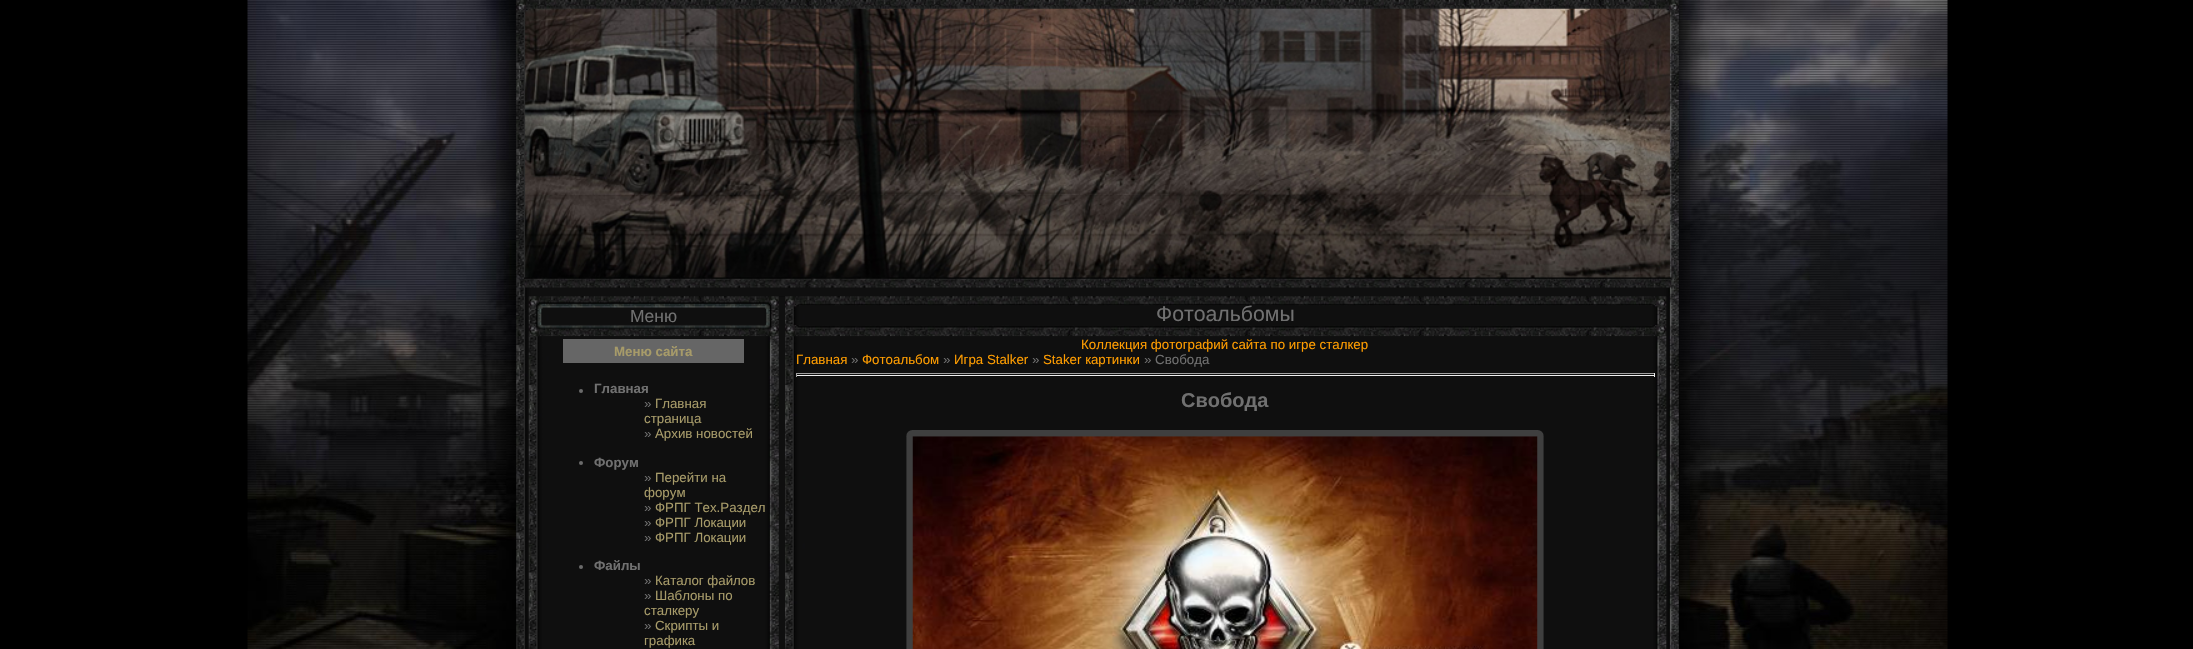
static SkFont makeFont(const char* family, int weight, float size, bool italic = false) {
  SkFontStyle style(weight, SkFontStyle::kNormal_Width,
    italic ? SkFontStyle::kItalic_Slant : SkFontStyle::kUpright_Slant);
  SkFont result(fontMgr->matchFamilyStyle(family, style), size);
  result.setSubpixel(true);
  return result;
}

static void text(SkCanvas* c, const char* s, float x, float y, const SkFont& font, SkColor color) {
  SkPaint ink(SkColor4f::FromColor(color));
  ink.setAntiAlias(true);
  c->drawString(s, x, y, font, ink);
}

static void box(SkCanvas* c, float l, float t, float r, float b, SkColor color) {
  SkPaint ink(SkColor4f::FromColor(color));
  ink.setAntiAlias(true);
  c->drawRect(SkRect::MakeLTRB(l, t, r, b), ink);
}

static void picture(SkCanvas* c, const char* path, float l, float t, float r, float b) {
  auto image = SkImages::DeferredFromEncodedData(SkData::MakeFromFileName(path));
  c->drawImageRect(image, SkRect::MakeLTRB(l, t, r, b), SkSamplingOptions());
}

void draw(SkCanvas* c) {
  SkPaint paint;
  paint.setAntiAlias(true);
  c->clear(0xff000000);
  picture(c, "img_01.png", 247, 0, 1948, 649);
  picture(c, "img_02.png", 516, 0, 1679, 297);
  picture(c, "img_03.png", 516, 296, 1679, 649);
  picture(c, "img_04.png", 528, 296, 779, 337);
  SkFont face1 = makeFont("Liberation Sans", 400, 17.5f);
  text(c, "Меню", 630, 322, face1, 0xff707070);
  picture(c, "img_05.png", 528, 336, 779, 649);
  box(c, 563, 339, 744, 363, 0xff666666);
  SkFont face2 = makeFont("Liberation Sans", 700, 13.3f);
  text(c, "Меню сайта", 614, 356, face2, 0xffa79b69);
  paint.setColor(0xff6b6b6b);
  c->drawCircle(581, 391, 2, paint);
  text(c, "Главная", 594, 393, face2, 0xff707070);
  SkFont face3 = makeFont("Liberation Sans", 400, 13.3f);
  text(c, "»", 644, 408, face3, 0xff707070);
  text(c, "Главная", 655, 408, face3, 0xffa79b69);
  text(c, "страница", 644, 423, face3, 0xffa79b69);
  text(c, "»", 644, 438, face3, 0xff707070);
  text(c, "Архив новостей", 655, 438, face3, 0xffa79b69);
  c->drawCircle(581, 463, 2, paint);
  text(c, "Форум", 594, 467, face2, 0xff707070);
  text(c, "»", 644, 482, face3, 0xff707070);
  text(c, "Перейти на", 655, 482, face3, 0xffa79b69);
  text(c, "форум", 644, 497, face3, 0xffa79b69);
  text(c, "»", 644, 512, face3, 0xff707070);
  text(c, "ФРПГ Тех.Раздел", 655, 512, face3, 0xffa79b69);
  text(c, "»", 644, 527, face3, 0xff707070);
  text(c, "ФРПГ Локации", 655, 527, face3, 0xffa79b69);
  text(c, "»", 644, 542, face3, 0xff707070);
  text(c, "ФРПГ Локации", 655, 542, face3, 0xffa79b69);
  c->drawCircle(581, 567, 2, paint);
  text(c, "Файлы", 594, 570, face2, 0xff707070);
  text(c, "»", 644, 585, face3, 0xff707070);
  text(c, "Каталог файлов", 655, 585, face3, 0xffa79b69);
  text(c, "»", 644, 600, face3, 0xff707070);
  text(c, "Шаблоны по", 655, 600, face3, 0xffa79b69);
  text(c, "сталкеру", 644, 615, face3, 0xffa79b69);
  text(c, "»", 644, 630, face3, 0xff707070);
  text(c, "Скрипты и", 655, 630, face3, 0xffa79b69);
  text(c, "графика", 644, 645, face3, 0xffa79b69);
  picture(c, "img_06.png", 785, 296, 1667, 337);
  SkFont face4 = makeFont("Liberation Sans", 400, 21.25f);
  text(c, "Фотоальбомы", 1156, 321, face4, 0xff707070);
  picture(c, "img_07.png", 785, 336, 1667, 649);
  text(c, "Коллекция фотографий сайта по игре сталкер", 1081, 349, face3, 0xffff9d00);
  text(c, "Главная", 796, 364, face3, 0xffff9d00);
  text(c, "»", 851, 364, face3, 0xff707070);
  text(c, "Фотоальбом", 862, 364, face3, 0xffff9d00);
  text(c, "»", 943, 364, face3, 0xff707070);
  text(c, "Игра Stalker", 954, 364, face3, 0xffff9d00);
  text(c, "»", 1032, 364, face3, 0xff707070);
  text(c, "Staker картинки", 1043, 364, face3, 0xffff9d00);
  text(c, "» Свобода", 1144, 364, face3, 0xff707070);
  box(c, 796, 373, 1655, 374, 0xff9f9f9f);
  box(c, 1654, 373, 1655, 377, 0xffeeeeee);
  box(c, 796, 375, 1655, 376, 0xffeeeeee);
  box(c, 796, 373, 797, 377, 0xff9f9f9f);
  SkFont face5 = makeFont("Liberation Sans", 700, 20);
  text(c, "Свобода", 1181, 407, face5, 0xff707070);
  picture(c, "img_08.png", 906, 430, 1544, 649);
  picture(c, "img_09.png", 912, 436, 1538, 649);
}
